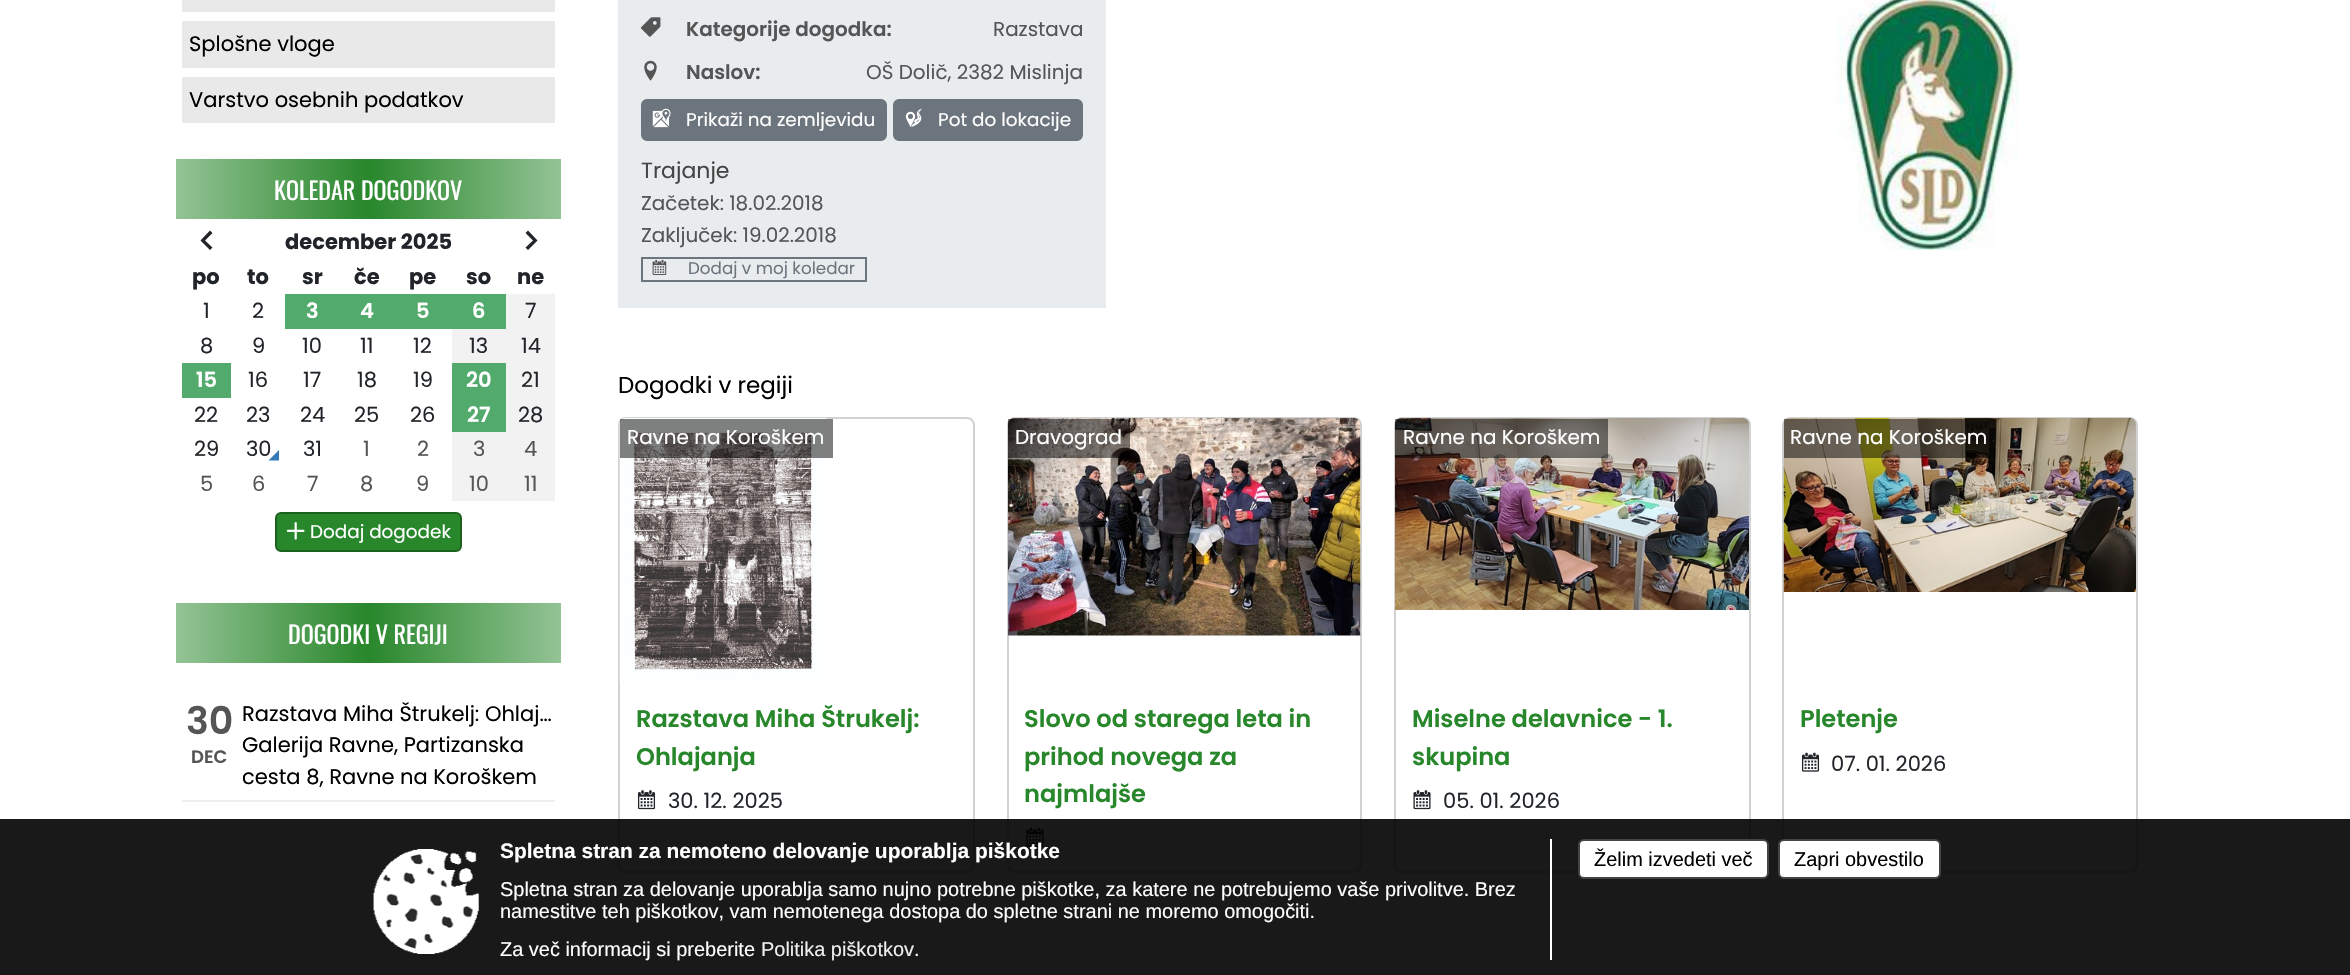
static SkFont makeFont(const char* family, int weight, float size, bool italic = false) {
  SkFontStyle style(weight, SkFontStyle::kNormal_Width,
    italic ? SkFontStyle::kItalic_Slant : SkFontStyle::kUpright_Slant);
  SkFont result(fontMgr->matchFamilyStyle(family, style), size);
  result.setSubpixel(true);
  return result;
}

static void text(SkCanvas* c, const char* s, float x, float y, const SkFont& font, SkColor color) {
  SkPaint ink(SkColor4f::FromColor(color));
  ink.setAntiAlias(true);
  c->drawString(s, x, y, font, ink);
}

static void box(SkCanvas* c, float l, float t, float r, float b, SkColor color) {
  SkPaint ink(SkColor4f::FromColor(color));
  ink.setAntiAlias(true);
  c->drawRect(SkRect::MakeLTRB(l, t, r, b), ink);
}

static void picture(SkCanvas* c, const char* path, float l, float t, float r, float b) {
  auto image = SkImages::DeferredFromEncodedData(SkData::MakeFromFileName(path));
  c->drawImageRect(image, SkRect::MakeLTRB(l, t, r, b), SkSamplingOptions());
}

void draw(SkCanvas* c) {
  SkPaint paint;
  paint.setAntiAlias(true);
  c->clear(0xffffffff);
  box(c, 182, 0, 555, 12, 0xffe9e9e9);
  box(c, 182, 21, 555, 68, 0xffe9e9e9);
  SkFont face1 = makeFont("Poppins", 400, 21);
  text(c, "Splošne vloge", 189, 51, face1, 0xff000000);
  box(c, 182, 77, 555, 123, 0xffe9e9e9);
  text(c, "Varstvo osebnih podatkov", 189, 107, face1, 0xff000000);
  {
    const SkColor colors[] = {0xff94c395, 0xff28872b, 0xff94c395};
    const float stops[] = {0, 0.5f, 1};
    const SkPoint ends[] = {{176, 189}, {561, 189}};
    paint.setShader(SkGradientShader::MakeLinear(ends, colors, stops, 3, SkTileMode::kClamp));
    paint.setAlpha(255);
  }
  c->drawRect(SkRect::MakeLTRB(176, 159, 561, 219), paint);
  SkFont face2 = makeFont("Oswald", 400, 24.1f);
  text(c, "KOLEDAR DOGODKOV", 274, 200, face2, 0xffffffff);
  paint.setShader(nullptr);
  paint.setColor(0xff212529);
  c->drawPath(SkPathBuilder().moveTo(212.5f, 247.5f).lineTo(210, 250).lineTo(200.5f, 240.5f).lineTo(210, 230.5f).lineTo(212.5f, 233).lineTo(205, 240.5f).close().detach(), paint);
  SkFont face3 = makeFont("Poppins", 700, 21);
  text(c, "december 2025", 285, 249, face3, 0xff212529);
  c->drawPath(SkPathBuilder().moveTo(525.5f, 247.5f).lineTo(533, 240.5f).lineTo(525.5f, 233).lineTo(528, 230.5f).lineTo(537.5f, 240.5f).lineTo(528, 250).close().detach(), paint);
  text(c, "po", 192, 284, face3, 0xff212529);
  text(c, "to", 247, 284, face3, 0xff212529);
  text(c, "sr", 302, 284, face3, 0xff212529);
  text(c, "če", 354, 284, face3, 0xff212529);
  text(c, "pe", 409, 284, face3, 0xff212529);
  text(c, "so", 466, 284, face3, 0xff212529);
  text(c, "ne", 517, 284, face3, 0xff212529);
  text(c, "1", 203, 318, face1, 0xff212529);
  text(c, "2", 252, 318, face1, 0xff212529);
  box(c, 285, 294, 506, 329, 0xff53aa6d);
  SkFont face4 = makeFont("Poppins", 600, 21);
  text(c, "3", 306, 318, face4, 0xffffffff);
  text(c, "4", 360, 318, face4, 0xffffffff);
  text(c, "5", 416, 318, face4, 0xffffffff);
  text(c, "6", 472, 318, face4, 0xffffffff);
  box(c, 506, 294, 555, 329, 0xfff2f2f2);
  text(c, "7", 525, 318, face1, 0xff212529);
  text(c, "8", 200, 353, face1, 0xff212529);
  text(c, "9", 252, 353, face1, 0xff212529);
  text(c, "10", 302, 353, face1, 0xff212529);
  text(c, "11", 360, 353, face1, 0xff212529);
  text(c, "12", 413, 353, face1, 0xff212529);
  box(c, 452, 329, 555, 363, 0xfff2f2f2);
  text(c, "13", 469, 353, face1, 0xff212529);
  text(c, "14", 521, 353, face1, 0xff212529);
  box(c, 182, 363, 231, 398, 0xff53aa6d);
  text(c, "15", 196, 387, face4, 0xffffffff);
  text(c, "16", 248, 387, face1, 0xff212529);
  text(c, "17", 303, 387, face1, 0xff212529);
  text(c, "18", 357, 387, face1, 0xff212529);
  text(c, "19", 413, 387, face1, 0xff212529);
  box(c, 452, 363, 506, 432, 0xff53aa6d);
  text(c, "20", 466, 387, face4, 0xffffffff);
  box(c, 506, 363, 555, 432, 0xfff2f2f2);
  text(c, "21", 521, 387, face1, 0xff212529);
  text(c, "22", 194, 422, face1, 0xff212529);
  text(c, "23", 246, 422, face1, 0xff212529);
  text(c, "24", 300, 422, face1, 0xff212529);
  text(c, "25", 354, 422, face1, 0xff212529);
  text(c, "26", 410, 422, face1, 0xff212529);
  text(c, "27", 467, 422, face4, 0xffffffff);
  text(c, "28", 518, 422, face1, 0xff212529);
  text(c, "29", 194, 456, face1, 0xff212529);
  text(c, "30", 246, 456, face1, 0xff212529);
  paint.setColor(0xff337ab7);
  c->drawPath(SkPathBuilder().moveTo(279, 460.5f).lineTo(268.5f, 460.5f).lineTo(279, 450).close().detach(), paint);
  text(c, "31", 303, 456, face1, 0xff212529);
  text(c, "1", 363, 456, face1, 0xff555555);
  text(c, "2", 417, 456, face1, 0xff555555);
  box(c, 452, 432, 555, 467, 0xfff2f2f2);
  text(c, "3", 473, 456, face1, 0xff555555);
  text(c, "4", 524, 456, face1, 0xff555555);
  text(c, "5", 200, 491, face1, 0xff555555);
  text(c, "6", 252, 491, face1, 0xff555555);
  text(c, "7", 307, 491, face1, 0xff555555);
  text(c, "8", 360, 491, face1, 0xff555555);
  text(c, "9", 416, 491, face1, 0xff555555);
  box(c, 452, 467, 555, 501, 0xfff2f2f2);
  text(c, "10", 469, 491, face1, 0xff555555);
  text(c, "11", 524, 491, face1, 0xff555555);
  paint.setColor(0xff28872b);
  c->drawRoundRect(SkRect::MakeLTRB(276, 513, 461, 551), 5, 5, paint);
  paint.setStyle(SkPaint::kStroke_Style);
  paint.setStrokeWidth(2);
  paint.setColor(0xff1c601e);
  c->drawRoundRect(SkRect::MakeLTRB(276, 513, 461, 551), 5, 5, paint);
  picture(c, "img_01.png", 286, 522, 305, 540);
  SkFont face5 = makeFont("Poppins", 400, 18.4f);
  text(c, "Dodaj dogodek", 310, 538, face5, 0xffffffff);
  paint.setStyle(SkPaint::kFill_Style);
  {
    const SkColor colors[] = {0xff94c395, 0xff28872b, 0xff94c395};
    const float stops[] = {0, 0.5f, 1};
    const SkPoint ends[] = {{176, 633}, {561, 633}};
    paint.setShader(SkGradientShader::MakeLinear(ends, colors, stops, 3, SkTileMode::kClamp));
    paint.setAlpha(255);
  }
  c->drawRect(SkRect::MakeLTRB(176, 603, 561, 663), paint);
  text(c, "DOGODKI V REGIJI", 288, 644, face2, 0xffffffff);
  box(c, 182, 800, 555, 802, 0xffeeeeee);
  SkFont face6 = makeFont("Poppins", 600, 38);
  text(c, "30", 186, 734, face6, 0xff555555);
  SkFont face7 = makeFont("Poppins", 600, 18);
  text(c, "DEC", 191, 763, face7, 0xff555555);
  text(c, "Razstava Miha Štrukelj: Ohlaj…", 242, 721, face1, 0xff000000);
  text(c, "Galerija Ravne, Partizanska", 242, 752, face1, 0xff000000);
  text(c, "cesta 8, Ravne na Koroškem", 242, 784, face1, 0xff000000);
  box(c, 182, 915, 555, 917, 0xffeeeeee);
  box(c, 618, 0, 1106, 308, 0xffe9ecef);
  picture(c, "img_02.png", 640, 17, 661, 37);
  SkFont face8 = makeFont("Poppins", 600, 19.95f);
  text(c, "Kategorije dogodka:", 686, 36, face8, 0xff555555);
  SkFont face9 = makeFont("Poppins", 400, 19.95f);
  text(c, "Razstava", 993, 36, face9, 0xff555555);
  picture(c, "img_03.png", 644, 60, 657, 81);
  text(c, "Naslov:", 686, 79, face8, 0xff555555);
  text(c, "OŠ Dolič, 2382 Mislinja", 866, 79, face9, 0xff555555);
  paint.setShader(nullptr);
  paint.setColor(0xff6c757d);
  c->drawRoundRect(SkRect::MakeLTRB(642, 100, 886, 140), 5, 5, paint);
  paint.setStyle(SkPaint::kStroke_Style);
  c->drawRoundRect(SkRect::MakeLTRB(642, 100, 886, 140), 5, 5, paint);
  picture(c, "img_04.png", 652, 108, 671, 128);
  text(c, "Prikaži na zemljevidu", 686, 126, face5, 0xffffffff);
  paint.setStyle(SkPaint::kFill_Style);
  c->drawRoundRect(SkRect::MakeLTRB(894, 100, 1082, 140), 5, 5, paint);
  paint.setStyle(SkPaint::kStroke_Style);
  c->drawRoundRect(SkRect::MakeLTRB(894, 100, 1082, 140), 5, 5, paint);
  picture(c, "img_05.png", 905, 108, 922, 127);
  text(c, "Pot do lokacije", 938, 126, face5, 0xffffffff);
  SkFont face10 = makeFont("Poppins", 400, 22);
  text(c, "Trajanje", 641, 178, face10, 0xff444444);
  text(c, "Začetek: 18.02.2018", 641, 210, face9, 0xff555555);
  text(c, "Zaključek: 19.02.2018", 641, 242, face9, 0xff555555);
  c->drawRect(SkRect::MakeLTRB(642, 258, 866, 281), paint);
  picture(c, "img_06.png", 652, 259, 667, 275);
  SkFont face11 = makeFont("Poppins", 400, 16.75f);
  text(c, "Dodaj v moj koledar", 688, 274, face11, 0xff6c757d);
  picture(c, "img_07.png", 1836, 0, 2019, 250);
  SkFont face12 = makeFont("Poppins", 400, 23);
  text(c, "Dogodki v regiji", 618, 393, face12, 0xff000000);
  paint.setColor(0xffd2d2d2);
  c->drawRoundRect(SkRect::MakeLTRB(619, 418, 974, 872), 7, 7, paint);
  picture(c, "img_08.png", 619, 418, 827, 683);
  box(c, 620, 419, 833, 458, 0x80000000);
  text(c, "Ravne na Koroškem", 627, 444, face9, 0xffffffff);
  SkFont face13 = makeFont("Poppins", 600, 24.1f);
  text(c, "Razstava Miha Štrukelj:", 636, 727, face13, 0xff28872b);
  text(c, "Ohlajanja", 636, 765, face13, 0xff28872b);
  picture(c, "img_09.png", 637, 790, 656, 810);
  text(c, "30. 12. 2025", 668, 808, face1, 0xff212529);
  c->drawRoundRect(SkRect::MakeLTRB(1008, 418, 1361, 872), 7, 7, paint);
  picture(c, "img_10.png", 1008, 418, 1361, 636);
  box(c, 1008, 419, 1130, 458, 0x80000000);
  text(c, "Dravograd", 1015, 444, face9, 0xffffffff);
  text(c, "Slovo od starega leta in", 1024, 727, face13, 0xff28872b);
  text(c, "prihod novega za", 1024, 765, face13, 0xff28872b);
  text(c, "najmlajše", 1024, 802, face13, 0xff28872b);
  picture(c, "img_11.png", 1026, 827, 1044, 847);
  c->drawRoundRect(SkRect::MakeLTRB(1395, 418, 1750, 872), 7, 7, paint);
  picture(c, "img_12.png", 1395, 418, 1749, 610);
  box(c, 1395, 419, 1608, 458, 0x80000000);
  text(c, "Ravne na Koroškem", 1403, 444, face9, 0xffffffff);
  text(c, "Miselne delavnice - 1.", 1412, 727, face13, 0xff28872b);
  text(c, "skupina", 1412, 765, face13, 0xff28872b);
  picture(c, "img_13.png", 1413, 790, 1431, 810);
  text(c, "05. 01. 2026", 1443, 808, face1, 0xff212529);
  c->drawRoundRect(SkRect::MakeLTRB(1783, 418, 2137, 872), 7, 7, paint);
  picture(c, "img_14.png", 1783, 418, 2136, 592);
  box(c, 1784, 419, 1995, 458, 0x80000000);
  text(c, "Ravne na Koroškem", 1790, 444, face9, 0xffffffff);
  text(c, "Pletenje", 1800, 727, face13, 0xff28872b);
  picture(c, "img_15.png", 1801, 752, 1820, 772);
  text(c, "07. 01. 2026", 1831, 771, face1, 0xff212529);
  box(c, 0, 819, 2350, 975, 0xe6000000);
  picture(c, "img_16.png", 373, 849, 479, 954);
  box(c, 1550, 839, 1552, 960, 0xffffffff);
  SkFont face14 = makeFont("Liberation Sans", 700, 20.95f);
  text(c, "Spletna stran za nemoteno delovanje uporablja piškotke", 500, 858, face14, 0xffffffff);
  SkFont face15 = makeFont("Liberation Sans", 400, 19.95f);
  text(c, "Spletna stran za delovanje uporablja samo nujno potrebne piškotke, za katere ne potrebujemo vaše privolitve. Brez", 500, 896, face15, 0xffffffff);
  text(c, "namestitve teh piškotkov, vam nemotenega dostopa do spletne strani ne moremo omogočiti.", 500, 918, face15, 0xffffffff);
  text(c, "Za več informacij si preberite", 500, 956, face15, 0xffffffff);
  text(c, "Politika piškotkov", 761, 956, face15, 0xffeeeeee);
  text(c, ".", 914, 956, face15, 0xffffffff);
  paint.setStyle(SkPaint::kFill_Style);
  paint.setColor(0xffffffff);
  c->drawRoundRect(SkRect::MakeLTRB(1579, 840, 1768, 878), 5, 5, paint);
  paint.setStyle(SkPaint::kStroke_Style);
  paint.setColor(0xff444444);
  c->drawRoundRect(SkRect::MakeLTRB(1579, 840, 1768, 878), 5, 5, paint);
  text(c, "Želim izvedeti več", 1594, 866, face15, 0xff000000);
  paint.setStyle(SkPaint::kFill_Style);
  paint.setColor(0xffffffff);
  c->drawRoundRect(SkRect::MakeLTRB(1779, 840, 1940, 878), 5, 5, paint);
  paint.setStyle(SkPaint::kStroke_Style);
  paint.setColor(0xff444444);
  c->drawRoundRect(SkRect::MakeLTRB(1779, 840, 1940, 878), 5, 5, paint);
  text(c, "Zapri obvestilo", 1794, 866, face15, 0xff000000);
}
